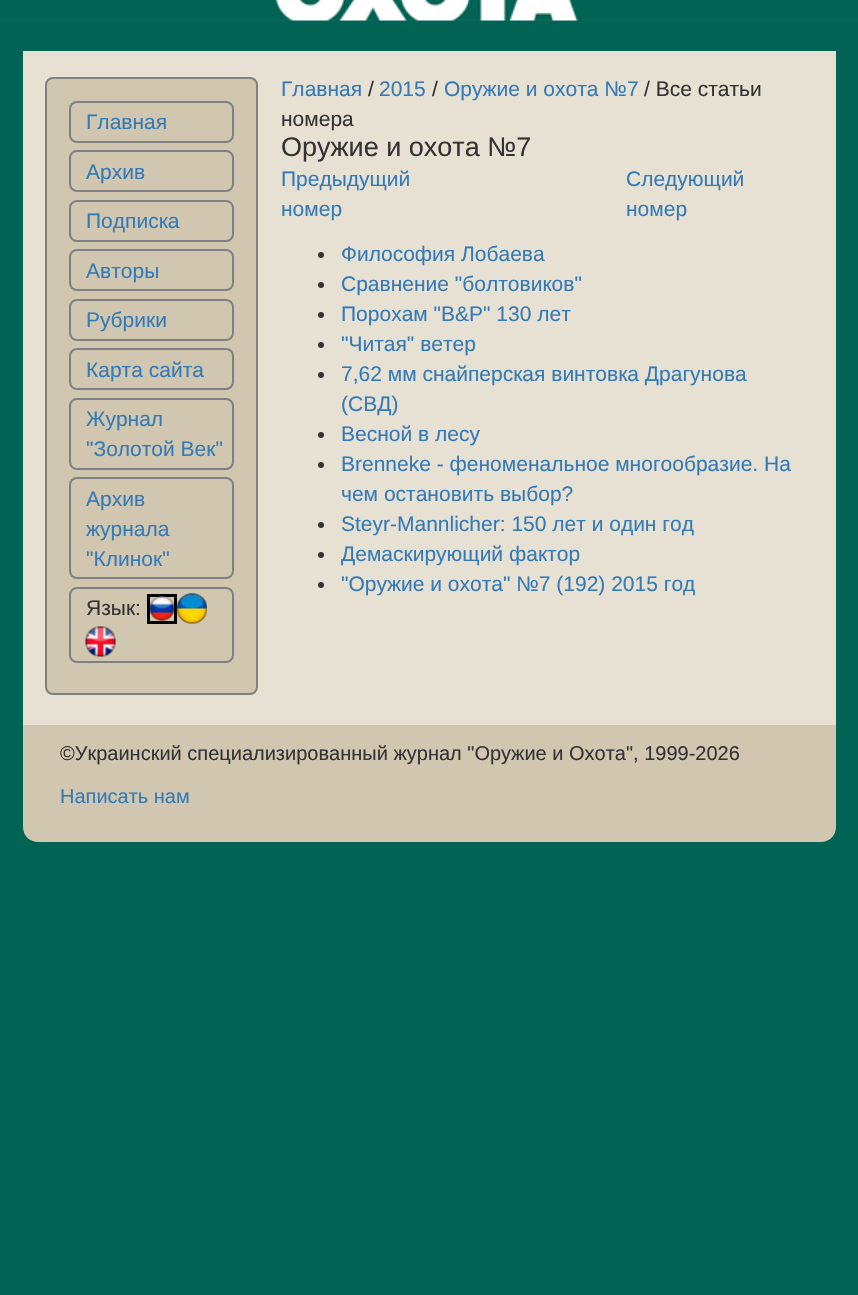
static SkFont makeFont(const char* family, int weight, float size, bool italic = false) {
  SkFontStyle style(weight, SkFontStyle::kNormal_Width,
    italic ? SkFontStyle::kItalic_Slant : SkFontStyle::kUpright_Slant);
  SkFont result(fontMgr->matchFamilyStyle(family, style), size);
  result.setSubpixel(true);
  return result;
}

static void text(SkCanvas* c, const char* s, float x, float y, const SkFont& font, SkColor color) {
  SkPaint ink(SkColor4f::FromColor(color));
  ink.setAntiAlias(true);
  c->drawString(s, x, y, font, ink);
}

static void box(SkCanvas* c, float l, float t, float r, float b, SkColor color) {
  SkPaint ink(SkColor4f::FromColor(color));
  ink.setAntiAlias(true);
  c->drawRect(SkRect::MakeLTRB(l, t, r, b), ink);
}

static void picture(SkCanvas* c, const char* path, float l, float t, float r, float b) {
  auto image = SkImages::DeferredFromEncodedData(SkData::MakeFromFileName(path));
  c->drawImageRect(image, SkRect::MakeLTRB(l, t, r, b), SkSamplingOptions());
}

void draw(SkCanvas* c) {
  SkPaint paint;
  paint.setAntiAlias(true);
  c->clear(0xff006354);
  picture(c, "img_01.png", 0, 19, 858, 21);
  picture(c, "img_02.png", 274, 0, 579, 21);
  box(c, 23, 51, 836, 725, 0xffe7e1d4);
  paint.setColor(0xffd1c7b0);
  c->drawRoundRect(SkRect::MakeLTRB(46, 78, 257, 694), 7, 7, paint);
  paint.setStyle(SkPaint::kStroke_Style);
  paint.setStrokeWidth(2);
  paint.setColor(0xff808080);
  c->drawRoundRect(SkRect::MakeLTRB(46, 78, 257, 694), 7, 7, paint);
  c->drawRoundRect(SkRect::MakeLTRB(70, 102, 233, 142), 7, 7, paint);
  SkFont face1 = makeFont("Liberation Sans", 400, 21);
  text(c, "Главная", 86, 129, face1, 0xff337ab7);
  c->drawRoundRect(SkRect::MakeLTRB(70, 151, 233, 191), 7, 7, paint);
  text(c, "Архив", 86, 179, face1, 0xff337ab7);
  c->drawRoundRect(SkRect::MakeLTRB(70, 201, 233, 241), 7, 7, paint);
  text(c, "Подписка", 86, 228, face1, 0xff337ab7);
  c->drawRoundRect(SkRect::MakeLTRB(70, 250, 233, 290), 7, 7, paint);
  text(c, "Авторы", 86, 278, face1, 0xff337ab7);
  c->drawRoundRect(SkRect::MakeLTRB(70, 300, 233, 340), 7, 7, paint);
  text(c, "Рубрики", 86, 327, face1, 0xff337ab7);
  c->drawRoundRect(SkRect::MakeLTRB(70, 349, 233, 389), 7, 7, paint);
  text(c, "Карта сайта", 86, 377, face1, 0xff337ab7);
  c->drawRoundRect(SkRect::MakeLTRB(70, 399, 233, 469), 7, 7, paint);
  text(c, "Журнал", 86, 426, face1, 0xff337ab7);
  text(c, "\"Золотой Век\"", 86, 456, face1, 0xff337ab7);
  c->drawRoundRect(SkRect::MakeLTRB(70, 478, 233, 578), 7, 7, paint);
  text(c, "Архив", 86, 506, face1, 0xff337ab7);
  text(c, "журнала", 86, 536, face1, 0xff337ab7);
  text(c, "\"Клинок\"", 86, 566, face1, 0xff337ab7);
  c->drawRoundRect(SkRect::MakeLTRB(70, 588, 233, 662), 7, 7, paint);
  paint.setStrokeWidth(3);
  paint.setColor(0xff000000);
  c->drawRect(SkRect::MakeLTRB(148.5f, 595.5f, 175.5f, 622.5f), paint);
  picture(c, "img_03.png", 176, 593, 207, 624);
  text(c, "Язык:", 86, 615, face1, 0xff333333);
  picture(c, "img_04.png", 149, 596, 175, 621);
  picture(c, "img_05.png", 85, 626, 116, 657);
  text(c, "Главная", 281, 96, face1, 0xff337ab7);
  text(c, "/", 368, 96, face1, 0xff333333);
  text(c, "2015", 379, 96, face1, 0xff337ab7);
  text(c, "/", 432, 96, face1, 0xff333333);
  text(c, "Оружие и охота №7", 444, 96, face1, 0xff337ab7);
  text(c, "/ Все статьи", 644, 96, face1, 0xff333333);
  text(c, "номера", 281, 126, face1, 0xff333333);
  SkFont face2 = makeFont("Liberation Sans", 400, 27);
  text(c, "Оружие и охота №7", 281, 156, face2, 0xff333333);
  text(c, "Предыдущий", 281, 186, face1, 0xff337ab7);
  text(c, "номер", 281, 216, face1, 0xff337ab7);
  text(c, "Следующий", 626, 186, face1, 0xff337ab7);
  text(c, "номер", 626, 216, face1, 0xff337ab7);
  paint.setStyle(SkPaint::kFill_Style);
  paint.setColor(0xff333333);
  c->drawCircle(321, 255, 3, paint);
  text(c, "Философия Лобаева", 341, 261, face1, 0xff337ab7);
  c->drawCircle(321, 285, 3, paint);
  text(c, "Сравнение \"болтовиков\"", 341, 291, face1, 0xff337ab7);
  c->drawCircle(321, 315, 3, paint);
  text(c, "Порохам \"B&P\" 130 лет", 341, 321, face1, 0xff337ab7);
  c->drawCircle(321, 345, 3, paint);
  text(c, "\"Читая\" ветер", 341, 351, face1, 0xff337ab7);
  c->drawCircle(321, 375, 3, paint);
  text(c, "7,62 мм снайперская винтовка Драгунова", 341, 381, face1, 0xff337ab7);
  text(c, "(СВД)", 341, 411, face1, 0xff337ab7);
  c->drawCircle(321, 435, 3, paint);
  text(c, "Весной в лесу", 341, 441, face1, 0xff337ab7);
  c->drawCircle(321, 465, 3, paint);
  text(c, "Brenneke - феноменальное многообразие. На", 341, 471, face1, 0xff337ab7);
  text(c, "чем остановить выбор?", 341, 501, face1, 0xff337ab7);
  c->drawCircle(321, 525, 3, paint);
  text(c, "Steyr-Mannlicher: 150 лет и один год", 341, 531, face1, 0xff337ab7);
  c->drawCircle(321, 555, 3, paint);
  text(c, "Демаскирующий фактор", 341, 561, face1, 0xff337ab7);
  c->drawCircle(321, 585, 3, paint);
  text(c, "\"Оружие и охота\" №7 (192) 2015 год", 341, 591, face1, 0xff337ab7);
  paint.setColor(0xffd1c7b0);
  c->drawPath(SkPathBuilder().moveTo(23, 725).lineTo(836, 725).lineTo(836, 827).cubicTo(836, 835.5f, 829.5f, 842, 821, 842).lineTo(38, 842).cubicTo(29.5f, 842, 23, 835.5f, 23, 827).close().detach(), paint);
  SkFont face3 = makeFont("Liberation Sans", 400, 20);
  text(c, "©Украинский специализированный журнал \"Оружие и Охота\", 1999-2026", 60, 760, face3, 0xff333333);
  text(c, "Написать нам", 60, 803, face3, 0xff337ab7);
}
